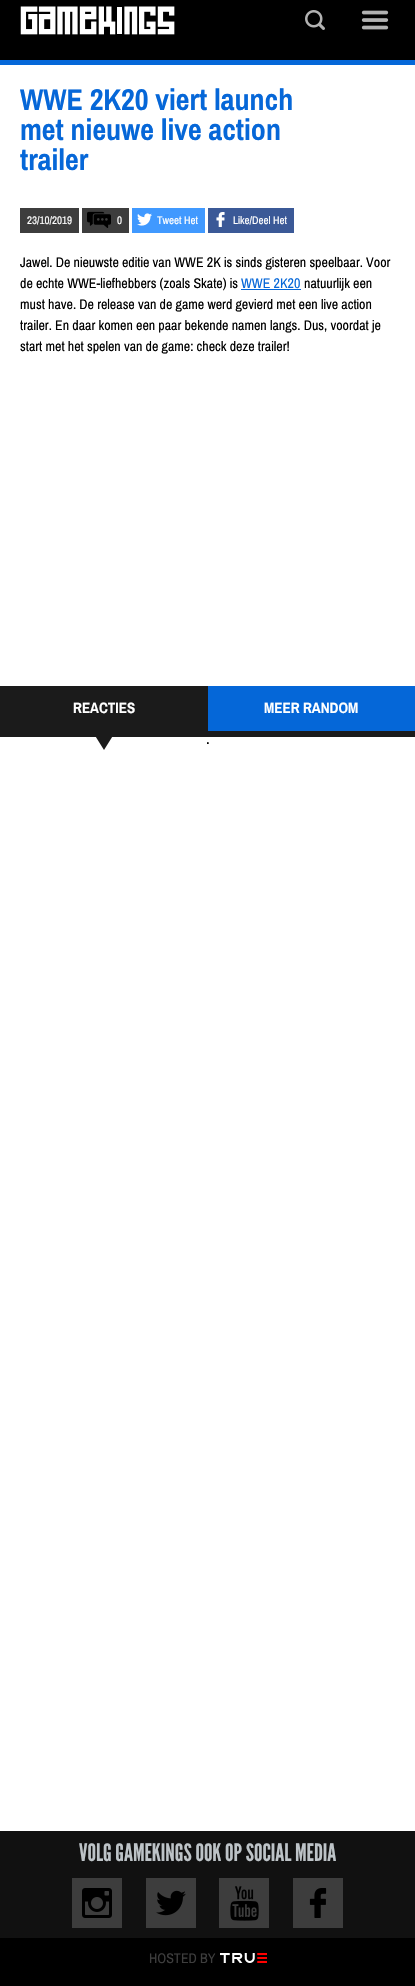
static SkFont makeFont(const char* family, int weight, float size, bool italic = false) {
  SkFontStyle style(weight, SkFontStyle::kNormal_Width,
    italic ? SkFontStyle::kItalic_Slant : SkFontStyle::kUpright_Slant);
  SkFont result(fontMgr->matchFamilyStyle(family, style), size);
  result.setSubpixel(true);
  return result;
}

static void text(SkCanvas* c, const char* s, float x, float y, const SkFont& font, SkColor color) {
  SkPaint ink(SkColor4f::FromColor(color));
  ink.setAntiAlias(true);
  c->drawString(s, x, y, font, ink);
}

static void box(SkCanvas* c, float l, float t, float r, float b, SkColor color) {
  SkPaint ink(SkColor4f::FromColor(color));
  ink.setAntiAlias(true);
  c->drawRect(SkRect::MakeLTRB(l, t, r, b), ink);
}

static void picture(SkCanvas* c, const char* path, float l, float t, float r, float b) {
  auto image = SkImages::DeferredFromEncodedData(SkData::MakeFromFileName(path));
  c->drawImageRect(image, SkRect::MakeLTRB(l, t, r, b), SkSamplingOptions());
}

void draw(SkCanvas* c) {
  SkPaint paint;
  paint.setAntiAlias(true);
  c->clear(0xff000000);
  picture(c, "img_01.png", 20, 6, 175, 35);
  picture(c, "img_02.png", 305, 10, 325, 30);
  picture(c, "img_03.png", 361, 10, 389, 30);
  box(c, 0, 65, 415, 1831, 0xffffffff);
  box(c, 0, 60, 415, 65, 0xff0567d8);
  SkFont face1 = makeFont("Archivo Narrow", 700, 30);
  text(c, "WWE 2K20 viert launch", 20, 110, face1, 0xff0667d8);
  text(c, "met nieuwe live action", 20, 140, face1, 0xff0667d8);
  text(c, "trailer", 20, 170, face1, 0xff0667d8);
  box(c, 20, 208, 79, 233, 0xff3d3d3d);
  SkFont face2 = makeFont("Archivo Narrow", 400, 11);
  text(c, "23/10/2019", 27, 224, face2, 0xffffffff);
  box(c, 82, 208, 129, 233, 0xff3d3d3d);
  picture(c, "img_04.png", 87, 211, 111, 228);
  text(c, "0", 117, 224, face2, 0xffffffff);
  box(c, 132, 208, 205, 233, 0xff4099ff);
  picture(c, "img_05.png", 137, 213, 152, 226);
  text(c, "Tweet Het", 157, 224, face2, 0xffffffff);
  box(c, 208, 208, 294, 233, 0xff3b5997);
  picture(c, "img_06.png", 216, 212, 225, 227);
  text(c, "Like/Deel Het", 233, 224, face2, 0xffffffff);
  SkFont face3 = makeFont("Archivo Narrow", 400, 14);
  text(c, "Jawel. De nieuwste editie van WWE 2K is sinds gisteren speelbaar. Voor", 20, 267, face3, 0xff000000);
  text(c, "de echte WWE-liefhebbers (zoals Skate) is", 20, 288, face3, 0xff000000);
  text(c, "WWE 2K20", 241, 288, face3, 0xff0667d8);
  box(c, 241, 289, 301, 290, 0xff0567d8);
  text(c, "natuurlijk een", 304, 288, face3, 0xff000000);
  text(c, "must have. De release van de game werd gevierd met een live action", 20, 309, face3, 0xff000000);
  text(c, "trailer. En daar komen een paar bekende namen langs. Dus, voordat je", 20, 330, face3, 0xff000000);
  text(c, "start met het spelen van de game: check deze trailer!", 20, 351, face3, 0xff000000);
  box(c, 0, 731, 415, 737, 0xff1b1b1b);
  box(c, 0, 686, 208, 731, 0xff1b1b1b);
  SkFont face4 = makeFont("Archivo Narrow", 700, 15);
  text(c, "REACTIES", 73, 713, face4, 0xffffffff);
  box(c, 208, 686, 415, 731, 0xff0567d8);
  text(c, "MEER RANDOM", 264, 713, face4, 0xffffffff);
  paint.setColor(0xff1b1b1b);
  c->drawPath(SkPathBuilder().moveTo(94, 734).lineTo(114, 734).lineTo(104, 750).close().detach(), paint);
  SkFont face5 = makeFont("Archivo Narrow", 400, 16);
  text(c, ".", 206, 744, face5, 0xff000000);
  box(c, 0, 1831, 415, 1938, 0xff111111);
  SkFont face6 = makeFont("League Gothic", 400, 24);
  text(c, "VOLG GAMEKINGS OOK OP SOCIAL MEDIA", 79, 1861, face6, 0xffbdc3c7);
  box(c, 72, 1878, 122, 1928, 0xff3d3d3d);
  picture(c, "img_07.png", 82, 1888, 112, 1918);
  box(c, 146, 1878, 196, 1928, 0xff3d3d3d);
  picture(c, "img_08.png", 156, 1890, 186, 1916);
  box(c, 219, 1878, 269, 1928, 0xff3d3d3d);
  picture(c, "img_09.png", 230, 1886, 259, 1921);
  box(c, 293, 1878, 343, 1928, 0xff3d3d3d);
  picture(c, "img_10.png", 309, 1888, 327, 1918);
  picture(c, "img_11.png", 220, 1953, 267, 1963);
  text(c, "HOSTED BY", 149, 1963, face3, 0xff3d3d3d);
}
